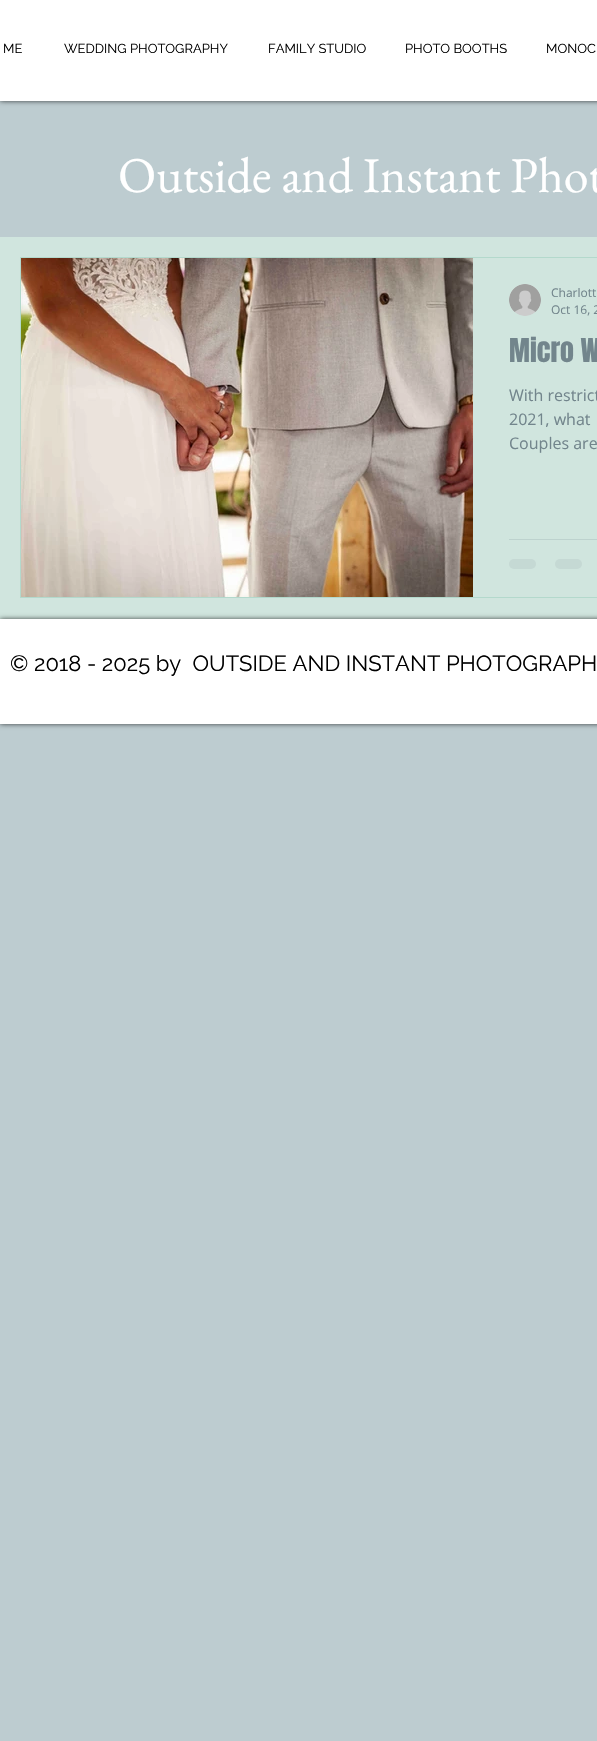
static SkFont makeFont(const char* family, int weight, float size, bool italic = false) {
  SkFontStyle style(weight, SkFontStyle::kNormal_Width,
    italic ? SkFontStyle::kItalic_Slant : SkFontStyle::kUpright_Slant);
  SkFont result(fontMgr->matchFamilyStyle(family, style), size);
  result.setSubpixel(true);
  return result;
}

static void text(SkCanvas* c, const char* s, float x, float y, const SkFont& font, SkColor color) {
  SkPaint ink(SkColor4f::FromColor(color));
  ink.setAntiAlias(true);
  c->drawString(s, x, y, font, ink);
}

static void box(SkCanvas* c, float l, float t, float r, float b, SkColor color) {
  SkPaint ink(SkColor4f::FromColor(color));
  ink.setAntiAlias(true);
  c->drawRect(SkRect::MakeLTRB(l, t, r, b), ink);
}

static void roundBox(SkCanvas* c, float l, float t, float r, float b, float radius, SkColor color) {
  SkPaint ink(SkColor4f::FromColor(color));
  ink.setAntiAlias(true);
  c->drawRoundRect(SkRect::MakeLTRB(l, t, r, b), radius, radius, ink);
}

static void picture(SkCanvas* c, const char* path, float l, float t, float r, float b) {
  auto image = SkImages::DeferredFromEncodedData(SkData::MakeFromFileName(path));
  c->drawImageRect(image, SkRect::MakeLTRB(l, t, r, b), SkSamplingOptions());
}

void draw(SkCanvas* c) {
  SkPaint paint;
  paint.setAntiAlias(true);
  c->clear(0xffbdccd0);
  paint.setColor(0xb3000000);
  paint.setMaskFilter(SkMaskFilter::MakeBlur(kNormal_SkBlurStyle, 2.5f));
  c->drawRect(SkRect::MakeLTRB(0, 0, 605, 101), paint);
  paint.setMaskFilter(nullptr);
  box(c, 0, 0, 597, 101, 0xffffffff);
  SkFont face1 = makeFont("Raleway", 400, 13);
  text(c, "ME", 3, 53, face1, 0xff000000);
  text(c, "WEDDING PHOTOGRAPHY", 64, 53, face1, 0xff000000);
  text(c, "FAMILY STUDIO", 268, 53, face1, 0xff000000);
  text(c, "PHOTO BOOTHS", 405, 53, face1, 0xff000000);
  text(c, "MONOC", 546, 53, face1, 0xff000000);
  SkFont face2 = makeFont("EB Garamond", 400, 50);
  text(c, "Outside and Instant Phot", 118, 192, face2, 0xffffffff);
  box(c, 0, 237, 597, 619, 0xffd0e5de);
  paint.setStyle(SkPaint::kStroke_Style);
  paint.setStrokeWidth(1);
  paint.setColor(0xffb3d9cc);
  c->drawRect(SkRect::MakeLTRB(20.5f, 257.5f, 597.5f, 597.5f), paint);
  picture(c, "img_01.png", 21, 258, 473, 597);
  picture(c, "img_02.png", 509, 284, 541, 316);
  SkFont face3 = makeFont("Open Sans", 400, 12);
  text(c, "Charlott", 551, 297, face3, 0xff72858c);
  text(c, "Oct 16, 2", 551, 314, face3, 0xff72858c);
  SkFont face4 = makeFont("Anton", 400, 28);
  text(c, "Micro W", 509, 362, face4, 0xff72858c);
  SkFont face5 = makeFont("Open Sans", 400, 16);
  text(c, "With restrict", 509, 401, face5, 0xff72858c);
  text(c, "2021, what", 509, 425, face5, 0xff72858c);
  text(c, "Couples are", 509, 449, face5, 0xff72858c);
  box(c, 509, 539, 597, 540, 0xffbdd2ce);
  roundBox(c, 509, 559, 536, 569, 5, 0xffc5d9d4);
  roundBox(c, 555, 559, 582, 569, 5, 0xffc5d9d4);
  paint.setStyle(SkPaint::kFill_Style);
  paint.setColor(0xb3000000);
  paint.setMaskFilter(SkMaskFilter::MakeBlur(kNormal_SkBlurStyle, 2.5f));
  c->drawRect(SkRect::MakeLTRB(0, 619, 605, 724), paint);
  paint.setMaskFilter(nullptr);
  box(c, 0, 619, 597, 724, 0xffffffff);
  SkFont face6 = makeFont("Raleway", 400, 22);
  text(c, "© 2018 - 2025 by  OUTSIDE AND INSTANT PHOTOGRAPH", 10, 671, face6, 0xff000000);
}
